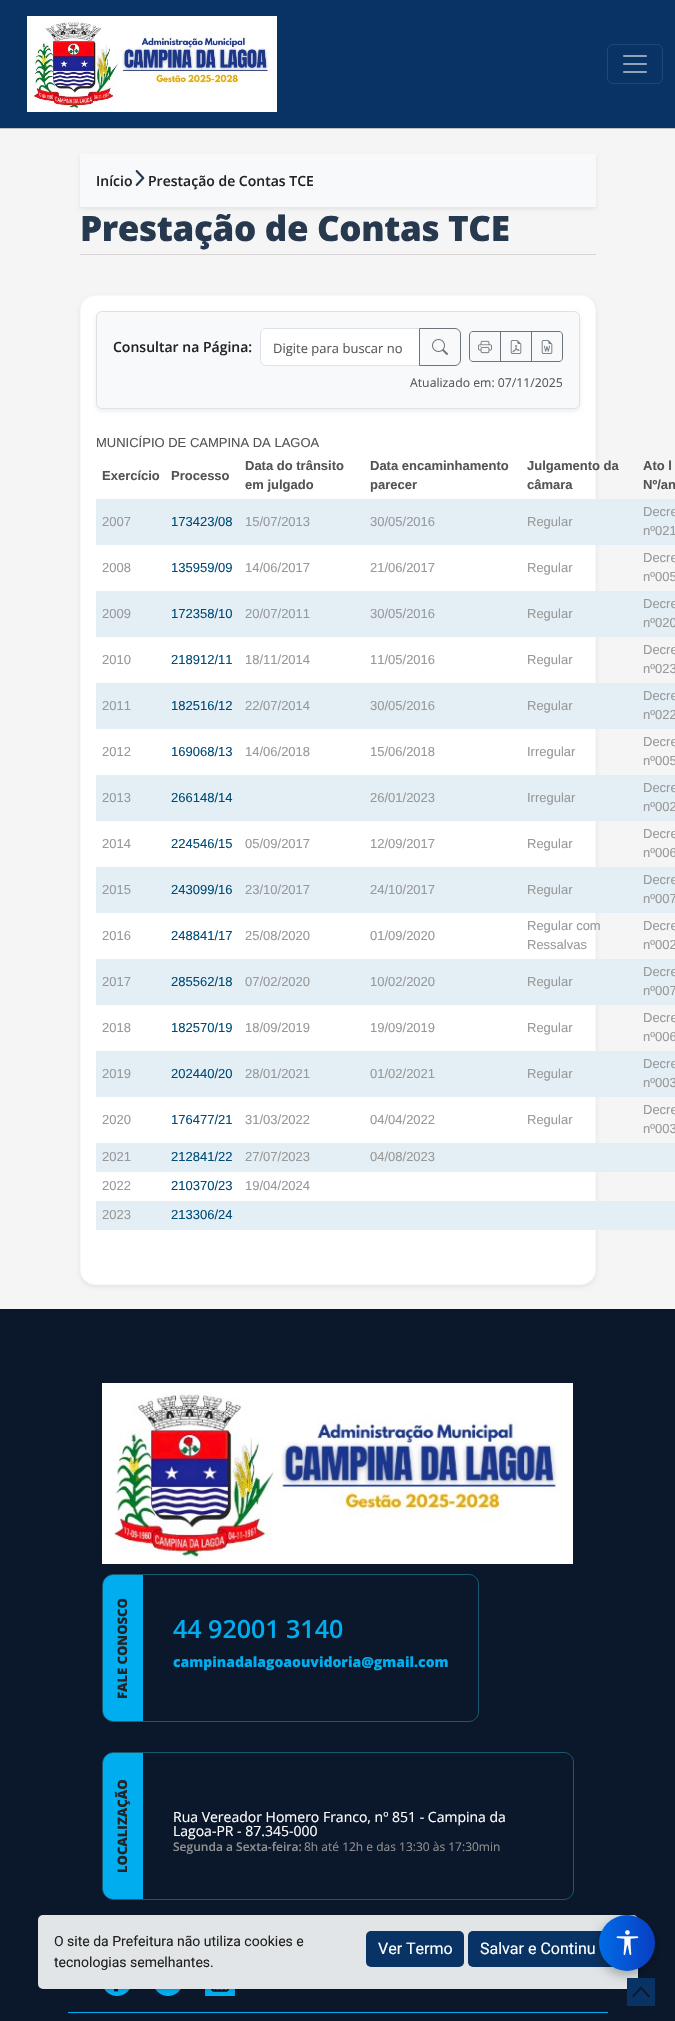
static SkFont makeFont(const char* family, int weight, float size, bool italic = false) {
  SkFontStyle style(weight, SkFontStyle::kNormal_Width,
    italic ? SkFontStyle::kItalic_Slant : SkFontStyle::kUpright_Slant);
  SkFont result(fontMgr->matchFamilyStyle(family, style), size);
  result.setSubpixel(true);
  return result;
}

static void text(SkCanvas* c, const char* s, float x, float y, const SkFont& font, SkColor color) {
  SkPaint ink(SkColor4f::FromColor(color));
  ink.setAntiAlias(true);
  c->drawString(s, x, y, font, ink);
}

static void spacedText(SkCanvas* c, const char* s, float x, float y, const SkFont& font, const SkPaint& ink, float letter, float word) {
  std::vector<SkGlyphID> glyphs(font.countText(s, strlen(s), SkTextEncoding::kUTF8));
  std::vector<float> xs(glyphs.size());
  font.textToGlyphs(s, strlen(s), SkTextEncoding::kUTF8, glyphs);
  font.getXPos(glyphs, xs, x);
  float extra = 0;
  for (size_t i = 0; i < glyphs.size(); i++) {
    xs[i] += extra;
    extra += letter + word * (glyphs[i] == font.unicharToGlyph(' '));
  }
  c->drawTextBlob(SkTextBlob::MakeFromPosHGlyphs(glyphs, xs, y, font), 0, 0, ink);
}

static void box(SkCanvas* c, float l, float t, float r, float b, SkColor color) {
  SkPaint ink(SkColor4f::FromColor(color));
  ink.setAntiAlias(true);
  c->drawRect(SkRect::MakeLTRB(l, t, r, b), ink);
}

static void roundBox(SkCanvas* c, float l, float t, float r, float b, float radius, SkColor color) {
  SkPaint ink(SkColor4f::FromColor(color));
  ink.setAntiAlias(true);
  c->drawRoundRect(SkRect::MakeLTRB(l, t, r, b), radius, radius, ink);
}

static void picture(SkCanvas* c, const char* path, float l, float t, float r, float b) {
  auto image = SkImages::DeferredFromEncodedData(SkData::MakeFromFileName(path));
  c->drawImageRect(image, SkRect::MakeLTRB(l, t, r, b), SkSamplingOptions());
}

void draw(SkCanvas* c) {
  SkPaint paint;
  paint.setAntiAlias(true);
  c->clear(0xfff5f5f5);
  box(c, 0, 0, 675, 128, 0xff093364);
  box(c, 0, 128, 675, 129, 0xffbfbfbf);
  picture(c, "img_01.png", 27, 16, 277, 112);
  paint.setStyle(SkPaint::kStroke_Style);
  paint.setStrokeWidth(1);
  paint.setColor(0xff224774);
  c->drawRoundRect(SkRect::MakeLTRB(607.5f, 44.5f, 662.5f, 83.5f), 5.5f, 5.5f, paint);
  picture(c, "img_02.png", 623, 55, 647, 73);
  paint.setStyle(SkPaint::kFill_Style);
  paint.setColor(0x12000000);
  paint.setMaskFilter(SkMaskFilter::MakeBlur(kNormal_SkBlurStyle, 2));
  c->drawRect(SkRect::MakeLTRB(80, 156, 596, 209), paint);
  paint.setMaskFilter(nullptr);
  box(c, 80, 154, 596, 207, 0xfff8f9fa);
  SkFont face1 = makeFont("Open Sans", 600, 14);
  text(c, "Início", 96, 186, face1, 0xff212529);
  picture(c, "img_03.png", 135, 170, 145, 186);
  text(c, "Prestação de Contas TCE", 148, 186, face1, 0xff212529);
  box(c, 80, 254, 596, 255, 0xffd9d5d5);
  SkFont face2 = makeFont("Open Sans", 800, 35);
  paint.setColor(0xff27394e);
  spacedText(c, "Prestação de Contas TCE", 80, 241, face2, paint, -0.35f, 0);
  paint.setColor(0x12000000);
  paint.setMaskFilter(SkMaskFilter::MakeBlur(kNormal_SkBlurStyle, 2));
  c->drawRoundRect(SkRect::MakeLTRB(80, 297, 596, 1287), 15, 15, paint);
  paint.setMaskFilter(nullptr);
  paint.setColor(0xffffffff);
  c->drawRoundRect(SkRect::MakeLTRB(80.5f, 295.5f, 595.5f, 1284.5f), 14.5f, 14.5f, paint);
  paint.setStyle(SkPaint::kStroke_Style);
  paint.setColor(0xfff8f9fa);
  c->drawRoundRect(SkRect::MakeLTRB(80.5f, 295.5f, 595.5f, 1284.5f), 14.5f, 14.5f, paint);
  paint.setStyle(SkPaint::kFill_Style);
  paint.setColor(0x12000000);
  paint.setMaskFilter(SkMaskFilter::MakeBlur(kNormal_SkBlurStyle, 2));
  c->drawRoundRect(SkRect::MakeLTRB(96, 313, 580, 411), 6, 6, paint);
  paint.setMaskFilter(nullptr);
  paint.setColor(0xfff8f9fa);
  c->drawRoundRect(SkRect::MakeLTRB(96.5f, 311.5f, 579.5f, 408.5f), 5.5f, 5.5f, paint);
  paint.setStyle(SkPaint::kStroke_Style);
  paint.setColor(0xffdee2e6);
  c->drawRoundRect(SkRect::MakeLTRB(96.5f, 311.5f, 579.5f, 408.5f), 5.5f, 5.5f, paint);
  text(c, "Consultar na Página:", 113, 352, face1, 0xff212529);
  paint.setStyle(SkPaint::kFill_Style);
  paint.setColor(0xffffffff);
  c->drawPath(SkPathBuilder().moveTo(266, 328.5f).lineTo(419.5f, 328.5f).lineTo(419.5f, 365.5f).lineTo(266, 365.5f).cubicTo(263, 365.5f, 260.5f, 363, 260.5f, 360).lineTo(260.5f, 334).cubicTo(260.5f, 331, 263, 328.5f, 266, 328.5f).close().detach(), paint);
  paint.setStyle(SkPaint::kStroke_Style);
  paint.setColor(0xffdee2e6);
  c->drawPath(SkPathBuilder().moveTo(266, 328.5f).lineTo(419.5f, 328.5f).lineTo(419.5f, 365.5f).lineTo(266, 365.5f).cubicTo(263, 365.5f, 260.5f, 363, 260.5f, 360).lineTo(260.5f, 334).cubicTo(260.5f, 331, 263, 328.5f, 266, 328.5f).close().detach(), paint);
  SkFont face3 = makeFont("Open Sans", 400, 13);
  text(c, "Digite para buscar no", 273, 353, face3, 0xff575a5d);
  paint.setColor(0xff6c757d);
  c->drawPath(SkPathBuilder().moveTo(419.5f, 328.5f).lineTo(455, 328.5f).cubicTo(458, 328.5f, 460.5f, 331, 460.5f, 334).lineTo(460.5f, 360).cubicTo(460.5f, 363, 458, 365.5f, 455, 365.5f).lineTo(419.5f, 365.5f).close().detach(), paint);
  picture(c, "img_04.png", 432, 339, 448, 355);
  c->drawPath(SkPathBuilder().moveTo(473, 331.5f).lineTo(500.5f, 331.5f).lineTo(500.5f, 361.5f).lineTo(473, 361.5f).cubicTo(471, 361.5f, 469.5f, 360, 469.5f, 358).lineTo(469.5f, 335).cubicTo(469.5f, 333, 471, 331.5f, 473, 331.5f).close().detach(), paint);
  picture(c, "img_05.png", 478, 340, 492, 354);
  c->drawRect(SkRect::MakeLTRB(500.5f, 331.5f, 531.5f, 361.5f), paint);
  picture(c, "img_06.png", 510, 340, 522, 354);
  c->drawPath(SkPathBuilder().moveTo(531.5f, 331.5f).lineTo(559, 331.5f).cubicTo(561, 331.5f, 562.5f, 333, 562.5f, 335).lineTo(562.5f, 358).cubicTo(562.5f, 360, 561, 361.5f, 559, 361.5f).lineTo(531.5f, 361.5f).close().detach(), paint);
  picture(c, "img_07.png", 541, 340, 553, 354);
  SkFont face4 = makeFont("Open Sans", 400, 12.25f);
  text(c, "Atualizado em: 07/11/2025", 410, 387, face4, 0xff575a5d);
  SkFont face5 = makeFont("Liberation Sans", 400, 13);
  text(c, "MUNICÍPIO DE CAMPINA DA LAGOA", 96, 447, face5, 0xff545454);
  SkFont face6 = makeFont("Liberation Sans", 700, 13);
  text(c, "Exercício", 102, 480, face6, 0xff545454);
  text(c, "Processo", 171, 480, face6, 0xff545454);
  text(c, "Data do trânsito", 245, 470, face6, 0xff545454);
  text(c, "em julgado", 245, 489, face6, 0xff545454);
  text(c, "Data encaminhamento", 370, 470, face6, 0xff545454);
  text(c, "parecer", 370, 489, face6, 0xff545454);
  text(c, "Julgamento da", 527, 470, face6, 0xff545454);
  text(c, "câmara", 527, 489, face6, 0xff545454);
  text(c, "Ato l", 643, 470, face6, 0xff545454);
  text(c, "Nº/an", 643, 489, face6, 0xff545454);
  box(c, 96, 499, 675, 545, 0xffe4eff5);
  text(c, "2007", 102, 526, face5, 0xff999999);
  text(c, "173423/08", 171, 526, face5, 0xff004c78);
  text(c, "15/07/2013", 245, 526, face5, 0xff999999);
  text(c, "30/05/2016", 370, 526, face5, 0xff999999);
  text(c, "Regular", 527, 526, face5, 0xff999999);
  text(c, "Decre", 643, 516, face5, 0xff999999);
  text(c, "nº021", 643, 535, face5, 0xff999999);
  text(c, "2008", 102, 572, face5, 0xff999999);
  text(c, "135959/09", 171, 572, face5, 0xff004c78);
  text(c, "14/06/2017", 245, 572, face5, 0xff999999);
  text(c, "21/06/2017", 370, 572, face5, 0xff999999);
  text(c, "Regular", 527, 572, face5, 0xff999999);
  text(c, "Decre", 643, 562, face5, 0xff999999);
  text(c, "nº005", 643, 581, face5, 0xff999999);
  box(c, 96, 591, 675, 637, 0xffe4eff5);
  text(c, "2009", 102, 618, face5, 0xff999999);
  text(c, "172358/10", 171, 618, face5, 0xff004c78);
  text(c, "20/07/2011", 245, 618, face5, 0xff999999);
  text(c, "30/05/2016", 370, 618, face5, 0xff999999);
  text(c, "Regular", 527, 618, face5, 0xff999999);
  text(c, "Decre", 643, 608, face5, 0xff999999);
  text(c, "nº020", 643, 627, face5, 0xff999999);
  text(c, "2010", 102, 664, face5, 0xff999999);
  text(c, "218912/11", 171, 664, face5, 0xff004c78);
  text(c, "18/11/2014", 245, 664, face5, 0xff999999);
  text(c, "11/05/2016", 370, 664, face5, 0xff999999);
  text(c, "Regular", 527, 664, face5, 0xff999999);
  text(c, "Decre", 643, 654, face5, 0xff999999);
  text(c, "nº023", 643, 673, face5, 0xff999999);
  box(c, 96, 683, 675, 729, 0xffe4eff5);
  text(c, "2011", 102, 710, face5, 0xff999999);
  text(c, "182516/12", 171, 710, face5, 0xff004c78);
  text(c, "22/07/2014", 245, 710, face5, 0xff999999);
  text(c, "30/05/2016", 370, 710, face5, 0xff999999);
  text(c, "Regular", 527, 710, face5, 0xff999999);
  text(c, "Decre", 643, 700, face5, 0xff999999);
  text(c, "nº022", 643, 719, face5, 0xff999999);
  text(c, "2012", 102, 756, face5, 0xff999999);
  text(c, "169068/13", 171, 756, face5, 0xff004c78);
  text(c, "14/06/2018", 245, 756, face5, 0xff999999);
  text(c, "15/06/2018", 370, 756, face5, 0xff999999);
  text(c, "Irregular", 527, 756, face5, 0xff999999);
  text(c, "Decre", 643, 746, face5, 0xff999999);
  text(c, "nº005", 643, 765, face5, 0xff999999);
  box(c, 96, 775, 675, 821, 0xffe4eff5);
  text(c, "2013", 102, 802, face5, 0xff999999);
  text(c, "266148/14", 171, 802, face5, 0xff004c78);
  text(c, "26/01/2023", 370, 802, face5, 0xff999999);
  text(c, "Irregular", 527, 802, face5, 0xff999999);
  text(c, "Decre", 643, 792, face5, 0xff999999);
  text(c, "nº002", 643, 811, face5, 0xff999999);
  text(c, "2014", 102, 848, face5, 0xff999999);
  text(c, "224546/15", 171, 848, face5, 0xff004c78);
  text(c, "05/09/2017", 245, 848, face5, 0xff999999);
  text(c, "12/09/2017", 370, 848, face5, 0xff999999);
  text(c, "Regular", 527, 848, face5, 0xff999999);
  text(c, "Decre", 643, 838, face5, 0xff999999);
  text(c, "nº006", 643, 857, face5, 0xff999999);
  box(c, 96, 867, 675, 913, 0xffe4eff5);
  text(c, "2015", 102, 894, face5, 0xff999999);
  text(c, "243099/16", 171, 894, face5, 0xff004c78);
  text(c, "23/10/2017", 245, 894, face5, 0xff999999);
  text(c, "24/10/2017", 370, 894, face5, 0xff999999);
  text(c, "Regular", 527, 894, face5, 0xff999999);
  text(c, "Decre", 643, 884, face5, 0xff999999);
  text(c, "nº007", 643, 903, face5, 0xff999999);
  text(c, "2016", 102, 940, face5, 0xff999999);
  text(c, "248841/17", 171, 940, face5, 0xff004c78);
  text(c, "25/08/2020", 245, 940, face5, 0xff999999);
  text(c, "01/09/2020", 370, 940, face5, 0xff999999);
  text(c, "Regular com", 527, 930, face5, 0xff999999);
  text(c, "Ressalvas", 527, 949, face5, 0xff999999);
  text(c, "Decre", 643, 930, face5, 0xff999999);
  text(c, "nº002", 643, 949, face5, 0xff999999);
  box(c, 96, 959, 675, 1005, 0xffe4eff5);
  text(c, "2017", 102, 986, face5, 0xff999999);
  text(c, "285562/18", 171, 986, face5, 0xff004c78);
  text(c, "07/02/2020", 245, 986, face5, 0xff999999);
  text(c, "10/02/2020", 370, 986, face5, 0xff999999);
  text(c, "Regular", 527, 986, face5, 0xff999999);
  text(c, "Decre", 643, 976, face5, 0xff999999);
  text(c, "nº007", 643, 995, face5, 0xff999999);
  text(c, "2018", 102, 1032, face5, 0xff999999);
  text(c, "182570/19", 171, 1032, face5, 0xff004c78);
  text(c, "18/09/2019", 245, 1032, face5, 0xff999999);
  text(c, "19/09/2019", 370, 1032, face5, 0xff999999);
  text(c, "Regular", 527, 1032, face5, 0xff999999);
  text(c, "Decre", 643, 1022, face5, 0xff999999);
  text(c, "nº006", 643, 1041, face5, 0xff999999);
  box(c, 96, 1051, 675, 1097, 0xffe4eff5);
  text(c, "2019", 102, 1078, face5, 0xff999999);
  text(c, "202440/20", 171, 1078, face5, 0xff004c78);
  text(c, "28/01/2021", 245, 1078, face5, 0xff999999);
  text(c, "01/02/2021", 370, 1078, face5, 0xff999999);
  text(c, "Regular", 527, 1078, face5, 0xff999999);
  text(c, "Decre", 643, 1068, face5, 0xff999999);
  text(c, "nº003", 643, 1087, face5, 0xff999999);
  text(c, "2020", 102, 1124, face5, 0xff999999);
  text(c, "176477/21", 171, 1124, face5, 0xff004c78);
  text(c, "31/03/2022", 245, 1124, face5, 0xff999999);
  text(c, "04/04/2022", 370, 1124, face5, 0xff999999);
  text(c, "Regular", 527, 1124, face5, 0xff999999);
  text(c, "Decre", 643, 1114, face5, 0xff999999);
  text(c, "nº003", 643, 1133, face5, 0xff999999);
  box(c, 96, 1143, 675, 1172, 0xffe4eff5);
  text(c, "2021", 102, 1161, face5, 0xff999999);
  text(c, "212841/22", 171, 1161, face5, 0xff004c78);
  text(c, "27/07/2023", 245, 1161, face5, 0xff999999);
  text(c, "04/08/2023", 370, 1161, face5, 0xff999999);
  text(c, "2022", 102, 1190, face5, 0xff999999);
  text(c, "210370/23", 171, 1190, face5, 0xff004c78);
  text(c, "19/04/2024", 245, 1190, face5, 0xff999999);
  box(c, 96, 1201, 675, 1230, 0xffe4eff5);
  text(c, "2023", 102, 1219, face5, 0xff999999);
  text(c, "213306/24", 171, 1219, face5, 0xff004c78);
  box(c, 0, 1309, 675, 2021, 0xff0b182c);
  box(c, 68, 2012, 608, 2013, 0xff00adef);
  picture(c, "img_08.png", 102, 1383, 573, 1564);
  paint.setColor(0xff175a70);
  c->drawPath(SkPathBuilder().moveTo(114, 1574.5f).lineTo(469, 1574.5f).cubicTo(474, 1574.5f, 478.5f, 1579, 478.5f, 1584).lineTo(478.5f, 1712).cubicTo(478.5f, 1717, 474, 1721.5f, 469, 1721.5f).lineTo(114, 1721.5f).cubicTo(107.5f, 1721.5f, 102.5f, 1716.5f, 102.5f, 1710).lineTo(102.5f, 1586).cubicTo(102.5f, 1579.5f, 107.5f, 1574.5f, 114, 1574.5f).close().detach(), paint);
  paint.setStyle(SkPaint::kFill_Style);
  paint.setColor(0xff00adef);
  c->drawPath(SkPathBuilder().moveTo(113, 1575).lineTo(143, 1575).lineTo(143, 1721).lineTo(113, 1721).cubicTo(107.5f, 1721, 103, 1716.5f, 103, 1711).lineTo(103, 1585).cubicTo(103, 1579.5f, 107.5f, 1575, 113, 1575).close().detach(), paint);
  SkFont face7 = makeFont("Open Sans", 800, 13);
  c->save();
  c->rotate(-90, 127, 1699);
  text(c, "FALE CONOSCO", 127, 1699, face7, 0xff212529);
  c->restore();
  SkFont face8 = makeFont("Open Sans", 600, 25);
  text(c, "44 92001 3140", 173, 1638, face8, 0xff00adef);
  SkFont face9 = makeFont("Open Sans", 800, 14);
  text(c, "campinadalagoaouvidoria@gmail.com", 173, 1667, face9, 0xff00adef);
  paint.setStyle(SkPaint::kStroke_Style);
  paint.setColor(0xff175a70);
  c->drawPath(SkPathBuilder().moveTo(114, 1752.5f).lineTo(564, 1752.5f).cubicTo(569, 1752.5f, 573.5f, 1757, 573.5f, 1762).lineTo(573.5f, 1890).cubicTo(573.5f, 1895, 569, 1899.5f, 564, 1899.5f).lineTo(114, 1899.5f).cubicTo(107.5f, 1899.5f, 102.5f, 1894.5f, 102.5f, 1888).lineTo(102.5f, 1764).cubicTo(102.5f, 1757.5f, 107.5f, 1752.5f, 114, 1752.5f).close().detach(), paint);
  paint.setStyle(SkPaint::kFill_Style);
  paint.setColor(0xff00adef);
  c->drawPath(SkPathBuilder().moveTo(113, 1753).lineTo(143, 1753).lineTo(143, 1899).lineTo(113, 1899).cubicTo(107.5f, 1899, 103, 1894.5f, 103, 1889).lineTo(103, 1763).cubicTo(103, 1757.5f, 107.5f, 1753, 113, 1753).close().detach(), paint);
  c->save();
  c->rotate(-90, 127, 1873);
  text(c, "LOCALIZAÇÃO", 127, 1873, face7, 0xff212529);
  c->restore();
  SkFont face10 = makeFont("Open Sans", 400, 14);
  text(c, "Rua Vereador Homero Franco, nº 851 - Campina da", 173, 1822, face10, 0xffffffff);
  text(c, "Lagoa-PR - 87.345-000", 173, 1836, face10, 0xffffffff);
  SkFont face11 = makeFont("Open Sans", 600, 12);
  text(c, "Segunda a Sexta-feira:", 173, 1851, face11, 0xff909090);
  SkFont face12 = makeFont("Open Sans", 400, 12);
  text(c, "8h até 12h e das 13:30 às 17:30min", 304, 1851, face12, 0xff909090);
  picture(c, "img_09.png", 104, 1989, 130, 1996);
  picture(c, "img_10.png", 155, 1989, 181, 1996);
  picture(c, "img_11.png", 205, 1989, 235, 1996);
  paint.setColor(0x26000000);
  paint.setMaskFilter(SkMaskFilter::MakeBlur(kNormal_SkBlurStyle, 1.5f));
  c->drawRoundRect(SkRect::MakeLTRB(38, 1916, 638, 1990), 5, 5, paint);
  paint.setMaskFilter(nullptr);
  roundBox(c, 38, 1915, 638, 1989, 5, 0xffe1e5e7);
  SkFont face13 = makeFont("Roboto", 400, 14);
  text(c, "O site da Prefeitura não utiliza cookies e", 54, 1946, face13, 0xff222222);
  text(c, "tecnologias semelhantes.", 54, 1967, face13, 0xff222222);
  roundBox(c, 366, 1931, 464, 1967, 5, 0xff093364);
  SkFont face14 = makeFont("Roboto", 400, 16);
  text(c, "Ver Termo", 378, 1954, face14, 0xffffffff);
  roundBox(c, 468, 1931, 622, 1967, 5, 0xff093364);
  text(c, "Salvar e Continu", 480, 1954, face14, 0xffffffff);
  paint.setColor(0x4d000000);
  paint.setMaskFilter(SkMaskFilter::MakeBlur(kNormal_SkBlurStyle, 6));
  c->drawRoundRect(SkRect::MakeLTRB(599, 1919, 655, 1975), 28, 28, paint);
  paint.setMaskFilter(nullptr);
  {
    const SkColor colors[] = {0xff006be6, 0xff0260dd, 0xff0555d4, 0xff0749cb, 0xff093ec2};
    const float stops[] = {0, 0.25f, 0.5f, 0.75f, 1};
    const SkPoint ends[] = {{599, 1943}, {655, 1943}};
    paint.setShader(SkGradientShader::MakeLinear(ends, colors, stops, 5, SkTileMode::kClamp));
    paint.setAlpha(255);
  }
  c->drawCircle(627, 1943, 28, paint);
  picture(c, "img_12.png", 616, 1930, 639, 1955);
  paint.setShader(nullptr);
  paint.setColor(0xff093364);
  c->drawPath(SkPathBuilder(SkPathFillType::kEvenOdd).moveTo(627, 1978).lineTo(627, 2006).lineTo(655, 2006).lineTo(655, 1978).close().moveTo(632, 1996).lineTo(641, 1986.5f).lineTo(650, 1996).lineTo(648.5f, 1997.5f).lineTo(641, 1989).lineTo(633.5f, 1997.5f).close().detach(), paint);
}
